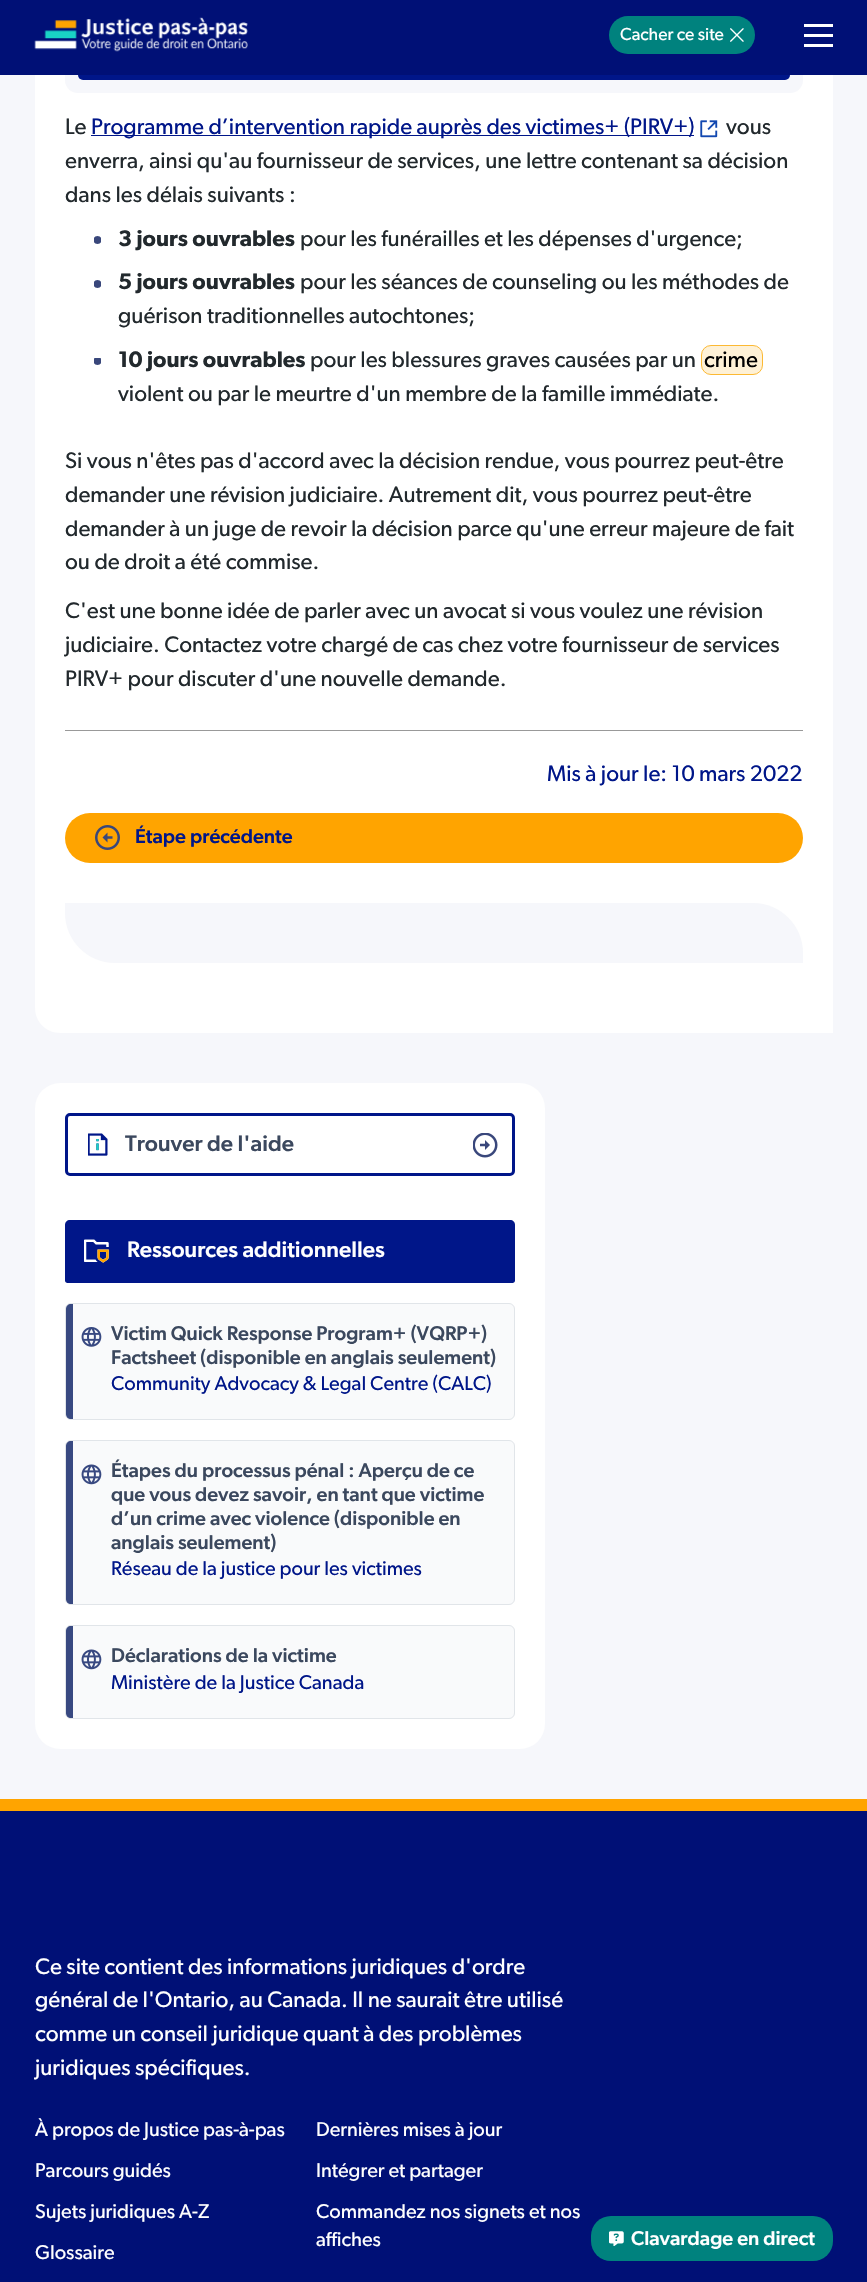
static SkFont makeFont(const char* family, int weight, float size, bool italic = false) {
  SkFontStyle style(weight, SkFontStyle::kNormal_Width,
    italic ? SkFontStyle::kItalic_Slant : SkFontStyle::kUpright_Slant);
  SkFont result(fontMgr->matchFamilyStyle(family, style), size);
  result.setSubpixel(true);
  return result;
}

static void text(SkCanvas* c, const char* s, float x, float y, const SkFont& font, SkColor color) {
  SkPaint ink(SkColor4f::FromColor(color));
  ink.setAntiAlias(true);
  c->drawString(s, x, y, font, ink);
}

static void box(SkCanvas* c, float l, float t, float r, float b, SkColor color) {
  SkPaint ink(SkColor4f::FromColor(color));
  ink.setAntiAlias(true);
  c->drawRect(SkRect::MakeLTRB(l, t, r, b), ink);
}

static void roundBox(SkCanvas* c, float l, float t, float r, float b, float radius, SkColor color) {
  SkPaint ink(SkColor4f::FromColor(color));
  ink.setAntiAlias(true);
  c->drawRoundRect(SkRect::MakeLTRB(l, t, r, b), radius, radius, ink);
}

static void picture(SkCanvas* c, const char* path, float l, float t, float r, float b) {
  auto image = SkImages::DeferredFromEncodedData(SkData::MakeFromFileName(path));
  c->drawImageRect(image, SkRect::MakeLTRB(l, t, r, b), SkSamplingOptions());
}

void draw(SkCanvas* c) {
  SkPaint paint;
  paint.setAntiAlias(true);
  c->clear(0xfff6f7fb);
  paint.setColor(0xffffffff);
  c->drawPath(SkPathBuilder().moveTo(35, -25).lineTo(808, -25).cubicTo(822, -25, 833, -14, 833, 0).lineTo(833, 1033).lineTo(60, 1033).cubicTo(46, 1033, 35, 1022, 35, 1008).close().detach(), paint);
  roundBox(c, 65, -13, 803, 93, 13, 0xfff6f7fb);
  roundBox(c, 78, 25, 790, 80, 5, 0xff001689);
  box(c, 0, 0, 867, 75, 0xff001076);
  picture(c, "img_01.png", 34, 17, 248, 52);
  box(c, 804, 24, 833, 27, 0xffffffff);
  box(c, 804, 34, 833, 37, 0xffffffff);
  box(c, 804, 44, 833, 47, 0xffffffff);
  roundBox(c, 609, 16, 755, 54, 19, 0xff00827e);
  SkFont face1 = makeFont("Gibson", 400, 17.5f);
  text(c, "Cacher ce site", 620, 40, face1, 0xffffffff);
  picture(c, "img_02.png", 730, 28, 744, 42);
  SkFont face2 = makeFont("Gibson", 400, 22.5f);
  text(c, "Le", 65, 134, face2, 0xff22292d);
  box(c, 91, 135, 694, 136, 0xff001689);
  text(c, "Programme d’intervention rapide auprès des victimes+ (PIRV+)", 91, 134, face2, 0xff001689);
  picture(c, "img_03.png", 700, 120, 718, 138);
  text(c, "vous", 726, 134, face2, 0xff22292d);
  text(c, "enverra, ainsi qu'au fournisseur de services, une lettre contenant sa décision", 65, 168, face2, 0xff22292d);
  text(c, "dans les délais suivants :", 65, 202, face2, 0xff22292d);
  c->save();
  c->clipRect(SkRect::MakeLTRB(94, 236, 101, 244));
  paint.setColor(0xff39477b);
  c->drawCircle(97.5f, 240, 4, paint);
  c->restore();
  SkFont face3 = makeFont("Gibson", 600, 22.5f);
  text(c, "3 jours ouvrables", 118, 246, face3, 0xff22292d);
  text(c, "pour les funérailles et les dépenses d'urgence;", 300, 246, face2, 0xff22292d);
  c->save();
  c->clipRect(SkRect::MakeLTRB(94, 280, 101, 288));
  c->drawCircle(97.5f, 284, 4, paint);
  c->restore();
  text(c, "5 jours ouvrables", 118, 289, face3, 0xff22292d);
  text(c, "pour les séances de counseling ou les méthodes de", 300, 289, face2, 0xff22292d);
  text(c, "guérison traditionnelles autochtones;", 118, 323, face2, 0xff22292d);
  c->save();
  c->clipRect(SkRect::MakeLTRB(94, 358, 101, 365));
  c->drawCircle(97.5f, 361, 4, paint);
  c->restore();
  text(c, "10 jours ouvrables", 118, 367, face3, 0xff22292d);
  text(c, "pour les blessures graves causées par un", 310, 367, face2, 0xff22292d);
  paint.setColor(0xfffef1d6);
  c->drawRoundRect(SkRect::MakeLTRB(701.5f, 345.5f, 762.5f, 374.5f), 9.5f, 9.5f, paint);
  paint.setStyle(SkPaint::kStroke_Style);
  paint.setStrokeWidth(1);
  paint.setColor(0xfffcb933);
  c->drawRoundRect(SkRect::MakeLTRB(701.5f, 345.5f, 762.5f, 374.5f), 9.5f, 9.5f, paint);
  text(c, "crime", 704, 367, face2, 0xff000000);
  text(c, "violent ou par le meurtre d'un membre de la famille immédiate.", 118, 401, face2, 0xff22292d);
  text(c, "Si vous n'êtes pas d'accord avec la décision rendue, vous pourrez peut-être", 65, 468, face2, 0xff22292d);
  text(c, "demander une révision judiciaire. Autrement dit, vous pourrez peut-être", 65, 502, face2, 0xff22292d);
  text(c, "demander à un juge de revoir la décision parce qu'une erreur majeure de fait", 65, 536, face2, 0xff22292d);
  text(c, "ou de droit a été commise.", 65, 569, face2, 0xff22292d);
  text(c, "C'est une bonne idée de parler avec un avocat si vous voulez une révision", 65, 618, face2, 0xff22292d);
  text(c, "judiciaire. Contactez votre chargé de cas chez votre fournisseur de services", 65, 652, face2, 0xff22292d);
  text(c, "PIRV+ pour discuter d'une nouvelle demande.", 65, 686, face2, 0xff22292d);
  box(c, 65, 730, 803, 731, 0xff999999);
  text(c, "Mis à jour le: 10 mars 2022", 547, 781, face2, 0xff001689);
  roundBox(c, 65, 813, 803, 863, 25, 0xffffa400);
  picture(c, "img_04.png", 95, 825, 120, 850);
  SkFont face4 = makeFont("Gibson", 500, 20);
  text(c, "Étape précédente", 135, 843, face4, 0xff001689);
  paint.setStyle(SkPaint::kFill_Style);
  paint.setColor(0xfff6f7fb);
  c->drawPath(SkPathBuilder().moveTo(65, 903).lineTo(753, 903).cubicTo(780.5f, 903, 803, 925.5f, 803, 953).lineTo(803, 963).lineTo(115, 963).cubicTo(87.5f, 963, 65, 940.5f, 65, 913).close().detach(), paint);
  roundBox(c, 35, 1083, 545, 1749, 25, 0xffffffff);
  paint.setStyle(SkPaint::kStroke_Style);
  paint.setStrokeWidth(3);
  paint.setColor(0xff001689);
  c->drawRoundRect(SkRect::MakeLTRB(66.5f, 1114.5f, 513.5f, 1174.5f), 3.5f, 3.5f, paint);
  picture(c, "img_05.png", 88, 1133, 108, 1156);
  SkFont face5 = makeFont("Gibson", 500, 22.5f);
  text(c, "Trouver de l'aide", 125, 1151, face5, 0xff3b485e);
  picture(c, "img_06.png", 473, 1133, 498, 1158);
  paint.setStyle(SkPaint::kFill_Style);
  c->drawPath(SkPathBuilder().moveTo(70, 1220).lineTo(510, 1220).cubicTo(513, 1220, 515, 1222, 515, 1225).lineTo(515, 1280.5f).cubicTo(515, 1282, 514, 1283, 512.5f, 1283).lineTo(67.5f, 1283).cubicTo(66, 1283, 65, 1282, 65, 1280.5f).lineTo(65, 1225).cubicTo(65, 1222, 67, 1220, 70, 1220).close().detach(), paint);
  picture(c, "img_07.png", 84, 1239, 109, 1263);
  text(c, "Ressources additionnelles", 127, 1257, face5, 0xffffffff);
  paint.setColor(0xfff9fafb);
  c->drawRoundRect(SkRect::MakeLTRB(65.5f, 1303.5f, 514.5f, 1419.5f), 5.5f, 5.5f, paint);
  paint.setStyle(SkPaint::kStroke_Style);
  paint.setStrokeWidth(1);
  paint.setColor(0xffe1e5e9);
  c->drawRoundRect(SkRect::MakeLTRB(65.5f, 1303.5f, 514.5f, 1419.5f), 5.5f, 5.5f, paint);
  paint.setStyle(SkPaint::kFill_Style);
  paint.setColor(0xff384981);
  c->drawPath(SkPathBuilder().moveTo(71, 1304).lineTo(73, 1304).lineTo(73, 1419).lineTo(71, 1419).cubicTo(68, 1419, 66, 1417, 66, 1414).lineTo(66, 1309).cubicTo(66, 1306, 68, 1304, 71, 1304).close().detach(), paint);
  picture(c, "img_08.png", 81, 1327, 102, 1347);
  text(c, "Victim Quick Response Program+ (VQRP+)", 111, 1340, face4, 0xff3b485e);
  text(c, "Factsheet (disponible en anglais seulement)", 111, 1364, face4, 0xff3b485e);
  SkFont face6 = makeFont("Gibson", 400, 20);
  text(c, "Community Advocacy & Legal Centre (CALC)", 111, 1390, face6, 0xff001689);
  paint.setColor(0xfff9fafb);
  c->drawRoundRect(SkRect::MakeLTRB(65.5f, 1440.5f, 514.5f, 1604.5f), 5.5f, 5.5f, paint);
  paint.setStyle(SkPaint::kStroke_Style);
  paint.setColor(0xffe1e5e9);
  c->drawRoundRect(SkRect::MakeLTRB(65.5f, 1440.5f, 514.5f, 1604.5f), 5.5f, 5.5f, paint);
  paint.setStyle(SkPaint::kFill_Style);
  paint.setColor(0xff384981);
  c->drawPath(SkPathBuilder().moveTo(71, 1441).lineTo(73, 1441).lineTo(73, 1604).lineTo(71, 1604).cubicTo(68, 1604, 66, 1602, 66, 1599).lineTo(66, 1446).cubicTo(66, 1443, 68, 1441, 71, 1441).close().detach(), paint);
  picture(c, "img_09.png", 81, 1464, 102, 1485);
  text(c, "Étapes du processus pénal : Aperçu de ce", 111, 1477, face4, 0xff3b485e);
  text(c, "que vous devez savoir, en tant que victime", 111, 1501, face4, 0xff3b485e);
  text(c, "d’un crime avec violence (disponible en", 111, 1525, face4, 0xff3b485e);
  text(c, "anglais seulement)", 111, 1549, face4, 0xff3b485e);
  text(c, "Réseau de la justice pour les victimes", 111, 1575, face6, 0xff001689);
  c->save();
  c->clipPath(SkPathBuilder().moveTo(70, 1220).lineTo(510, 1220).cubicTo(513, 1220, 515, 1222, 515, 1225).lineTo(515, 1714).cubicTo(515, 1717, 513, 1719, 510, 1719).lineTo(70, 1719).cubicTo(67, 1719, 65, 1717, 65, 1714).lineTo(65, 1225).cubicTo(65, 1222, 67, 1220, 70, 1220).close().detach(), true);
  roundBox(c, 65, 1625, 515, 1719, 6, 0xfff9fafb);
  c->restore();
  paint.setStyle(SkPaint::kStroke_Style);
  paint.setColor(0xffe1e5e9);
  c->drawRoundRect(SkRect::MakeLTRB(65.5f, 1625.5f, 514.5f, 1718.5f), 5.5f, 5.5f, paint);
  paint.setStyle(SkPaint::kFill_Style);
  paint.setColor(0xff384981);
  c->drawPath(SkPathBuilder().moveTo(71, 1626).lineTo(73, 1626).lineTo(73, 1718).lineTo(71, 1718).cubicTo(68, 1718, 66, 1716, 66, 1713).lineTo(66, 1631).cubicTo(66, 1628, 68, 1626, 71, 1626).close().detach(), paint);
  picture(c, "img_09.png", 81, 1649, 102, 1670);
  text(c, "Déclarations de la victime", 111, 1662, face4, 0xff3b485e);
  text(c, "Ministère de la Justice Canada", 111, 1689, face6, 0xff001689);
  box(c, 0, 1811, 867, 2282, 0xff001076);
  box(c, 0, 1799, 867, 1811, 0xffffa400);
  text(c, "Ce site contient des informations juridiques d'ordre", 35, 1974, face2, 0xffffffff);
  text(c, "général de l'Ontario, au Canada. Il ne saurait être utilisé", 35, 2007, face2, 0xffffffff);
  text(c, "comme un conseil juridique quant à des problèmes", 35, 2041, face2, 0xffffffff);
  text(c, "juridiques spécifiques.", 35, 2075, face2, 0xffffffff);
  text(c, "À propos de Justice pas-à-pas", 35, 2136, face6, 0xffffffff);
  text(c, "Parcours guidés", 35, 2177, face6, 0xffffffff);
  text(c, "Sujets juridiques A-Z", 35, 2218, face6, 0xffffffff);
  text(c, "Glossaire", 35, 2259, face6, 0xffffffff);
  text(c, "Dernières mises à jour", 316, 2136, face6, 0xffffffff);
  text(c, "Intégrer et partager", 316, 2177, face6, 0xffffffff);
  text(c, "Commandez nos signets et nos", 316, 2218, face6, 0xffffffff);
  text(c, "affiches", 316, 2246, face6, 0xffffffff);
  roundBox(c, 591, 2216, 833, 2261, 20, 0xff00827e);
  picture(c, "img_10.png", 609, 2231, 624, 2246);
  text(c, "Clavardage en direct", 631, 2245, face4, 0xffffffff);
}
